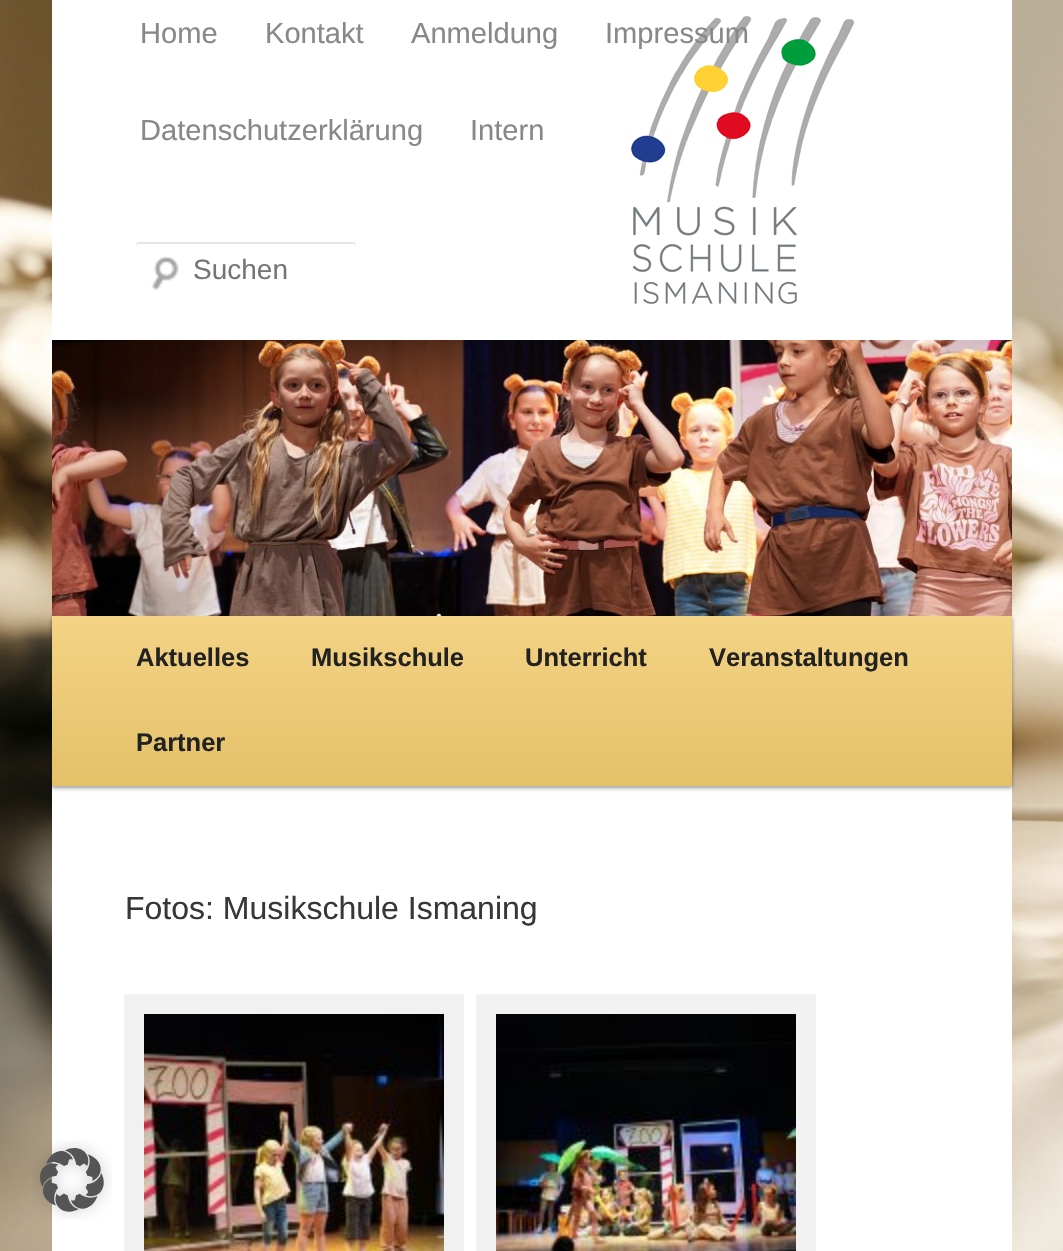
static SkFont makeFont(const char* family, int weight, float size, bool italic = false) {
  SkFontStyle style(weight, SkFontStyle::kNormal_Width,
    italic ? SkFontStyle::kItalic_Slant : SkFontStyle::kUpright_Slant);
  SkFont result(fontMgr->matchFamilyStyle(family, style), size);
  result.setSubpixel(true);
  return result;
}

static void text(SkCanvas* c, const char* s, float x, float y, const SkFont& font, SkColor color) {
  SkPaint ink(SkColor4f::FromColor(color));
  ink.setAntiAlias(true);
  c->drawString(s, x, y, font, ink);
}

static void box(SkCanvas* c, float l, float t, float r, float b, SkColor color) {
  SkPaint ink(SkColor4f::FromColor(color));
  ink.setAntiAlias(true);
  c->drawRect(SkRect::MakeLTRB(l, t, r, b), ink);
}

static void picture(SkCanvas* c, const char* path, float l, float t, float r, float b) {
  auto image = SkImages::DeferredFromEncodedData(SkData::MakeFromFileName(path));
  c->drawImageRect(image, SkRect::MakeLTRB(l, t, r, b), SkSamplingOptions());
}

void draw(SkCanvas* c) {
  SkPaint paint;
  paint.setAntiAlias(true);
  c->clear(0xffffffff);
  picture(c, "img_01.png", 0, 0, 1063, 1251);
  box(c, 52, 0, 1012, 1251, 0xffffffff);
  picture(c, "img_02.png", 631, 16, 854, 304);
  SkFont face1 = makeFont("Liberation Sans", 400, 29.1f);
  text(c, "Home", 140, 43, face1, 0xff888888);
  text(c, "Kontakt", 265, 43, face1, 0xff888888);
  text(c, "Anmeldung", 411, 43, face1, 0xff888888);
  text(c, "Impressum", 605, 43, face1, 0xff888888);
  text(c, "Datenschutzerklärung", 140, 140, face1, 0xff888888);
  text(c, "Intern", 470, 140, face1, 0xff888888);
  paint.setColor(0x66000000);
  paint.setMaskFilter(SkMaskFilter::MakeBlur(kNormal_SkBlurStyle, 2));
  c->drawRect(SkRect::MakeLTRB(52, 618, 1012, 788), paint);
  paint.setMaskFilter(nullptr);
  {
    const SkColor colors[] = {0xfff3d385, 0xffe4c069};
    const float stops[] = {0, 1};
    const SkPoint ends[] = {{532, 616}, {532, 786}};
    paint.setShader(SkGradientShader::MakeLinear(ends, colors, stops, 2, SkTileMode::kClamp));
    paint.setAlpha(255);
  }
  c->drawRect(SkRect::MakeLTRB(52, 616, 1012, 786), paint);
  picture(c, "img_03.png", 151, 256, 179, 291);
  paint.setShader(nullptr);
  paint.setColor(0xffe6e6e6);
  c->drawPath(SkPathBuilder().moveTo(138, 244).lineTo(354, 244).cubicTo(355, 244, 356, 245, 356, 246).lineTo(356, 244).cubicTo(356, 243, 355, 242, 354, 242).lineTo(138, 242).cubicTo(137, 242, 136, 243, 136, 244).lineTo(136, 246).cubicTo(136, 245, 137, 244, 138, 244).close().detach(), paint);
  paint.setStyle(SkPaint::kStroke_Style);
  paint.setStrokeWidth(2);
  paint.setColor(0xffffffff);
  c->drawRoundRect(SkRect::MakeLTRB(135, 241, 357, 297), 3, 3, paint);
  SkFont face2 = makeFont("Liberation Sans", 400, 28);
  text(c, "Suchen", 193, 279, face2, 0xff757575);
  SkFont face3 = makeFont("Liberation Sans", 700, 25.5f);
  text(c, "Aktuelles", 136, 666, face3, 0xff222222);
  text(c, "Musikschule", 311, 666, face3, 0xff222222);
  text(c, "Unterricht", 525, 666, face3, 0xff222222);
  text(c, "Veranstaltungen", 709, 666, face3, 0xff222222);
  text(c, "Partner", 136, 751, face3, 0xff222222);
  picture(c, "img_04.png", 52, 340, 1012, 616);
  SkFont face4 = makeFont("Liberation Sans", 400, 32);
  text(c, "Fotos: Musikschule Ismaning", 125, 919, face4, 0xff373737);
  paint.setStrokeWidth(20);
  paint.setColor(0xfff1f1f1);
  c->drawRect(SkRect::MakeLTRB(134, 1004, 454, 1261), paint);
  picture(c, "img_05.png", 144, 1014, 444, 1251);
  c->drawRect(SkRect::MakeLTRB(486, 1004, 806, 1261), paint);
  picture(c, "img_06.png", 496, 1014, 796, 1251);
  picture(c, "img_07.png", 32, 1140, 112, 1220);
}
